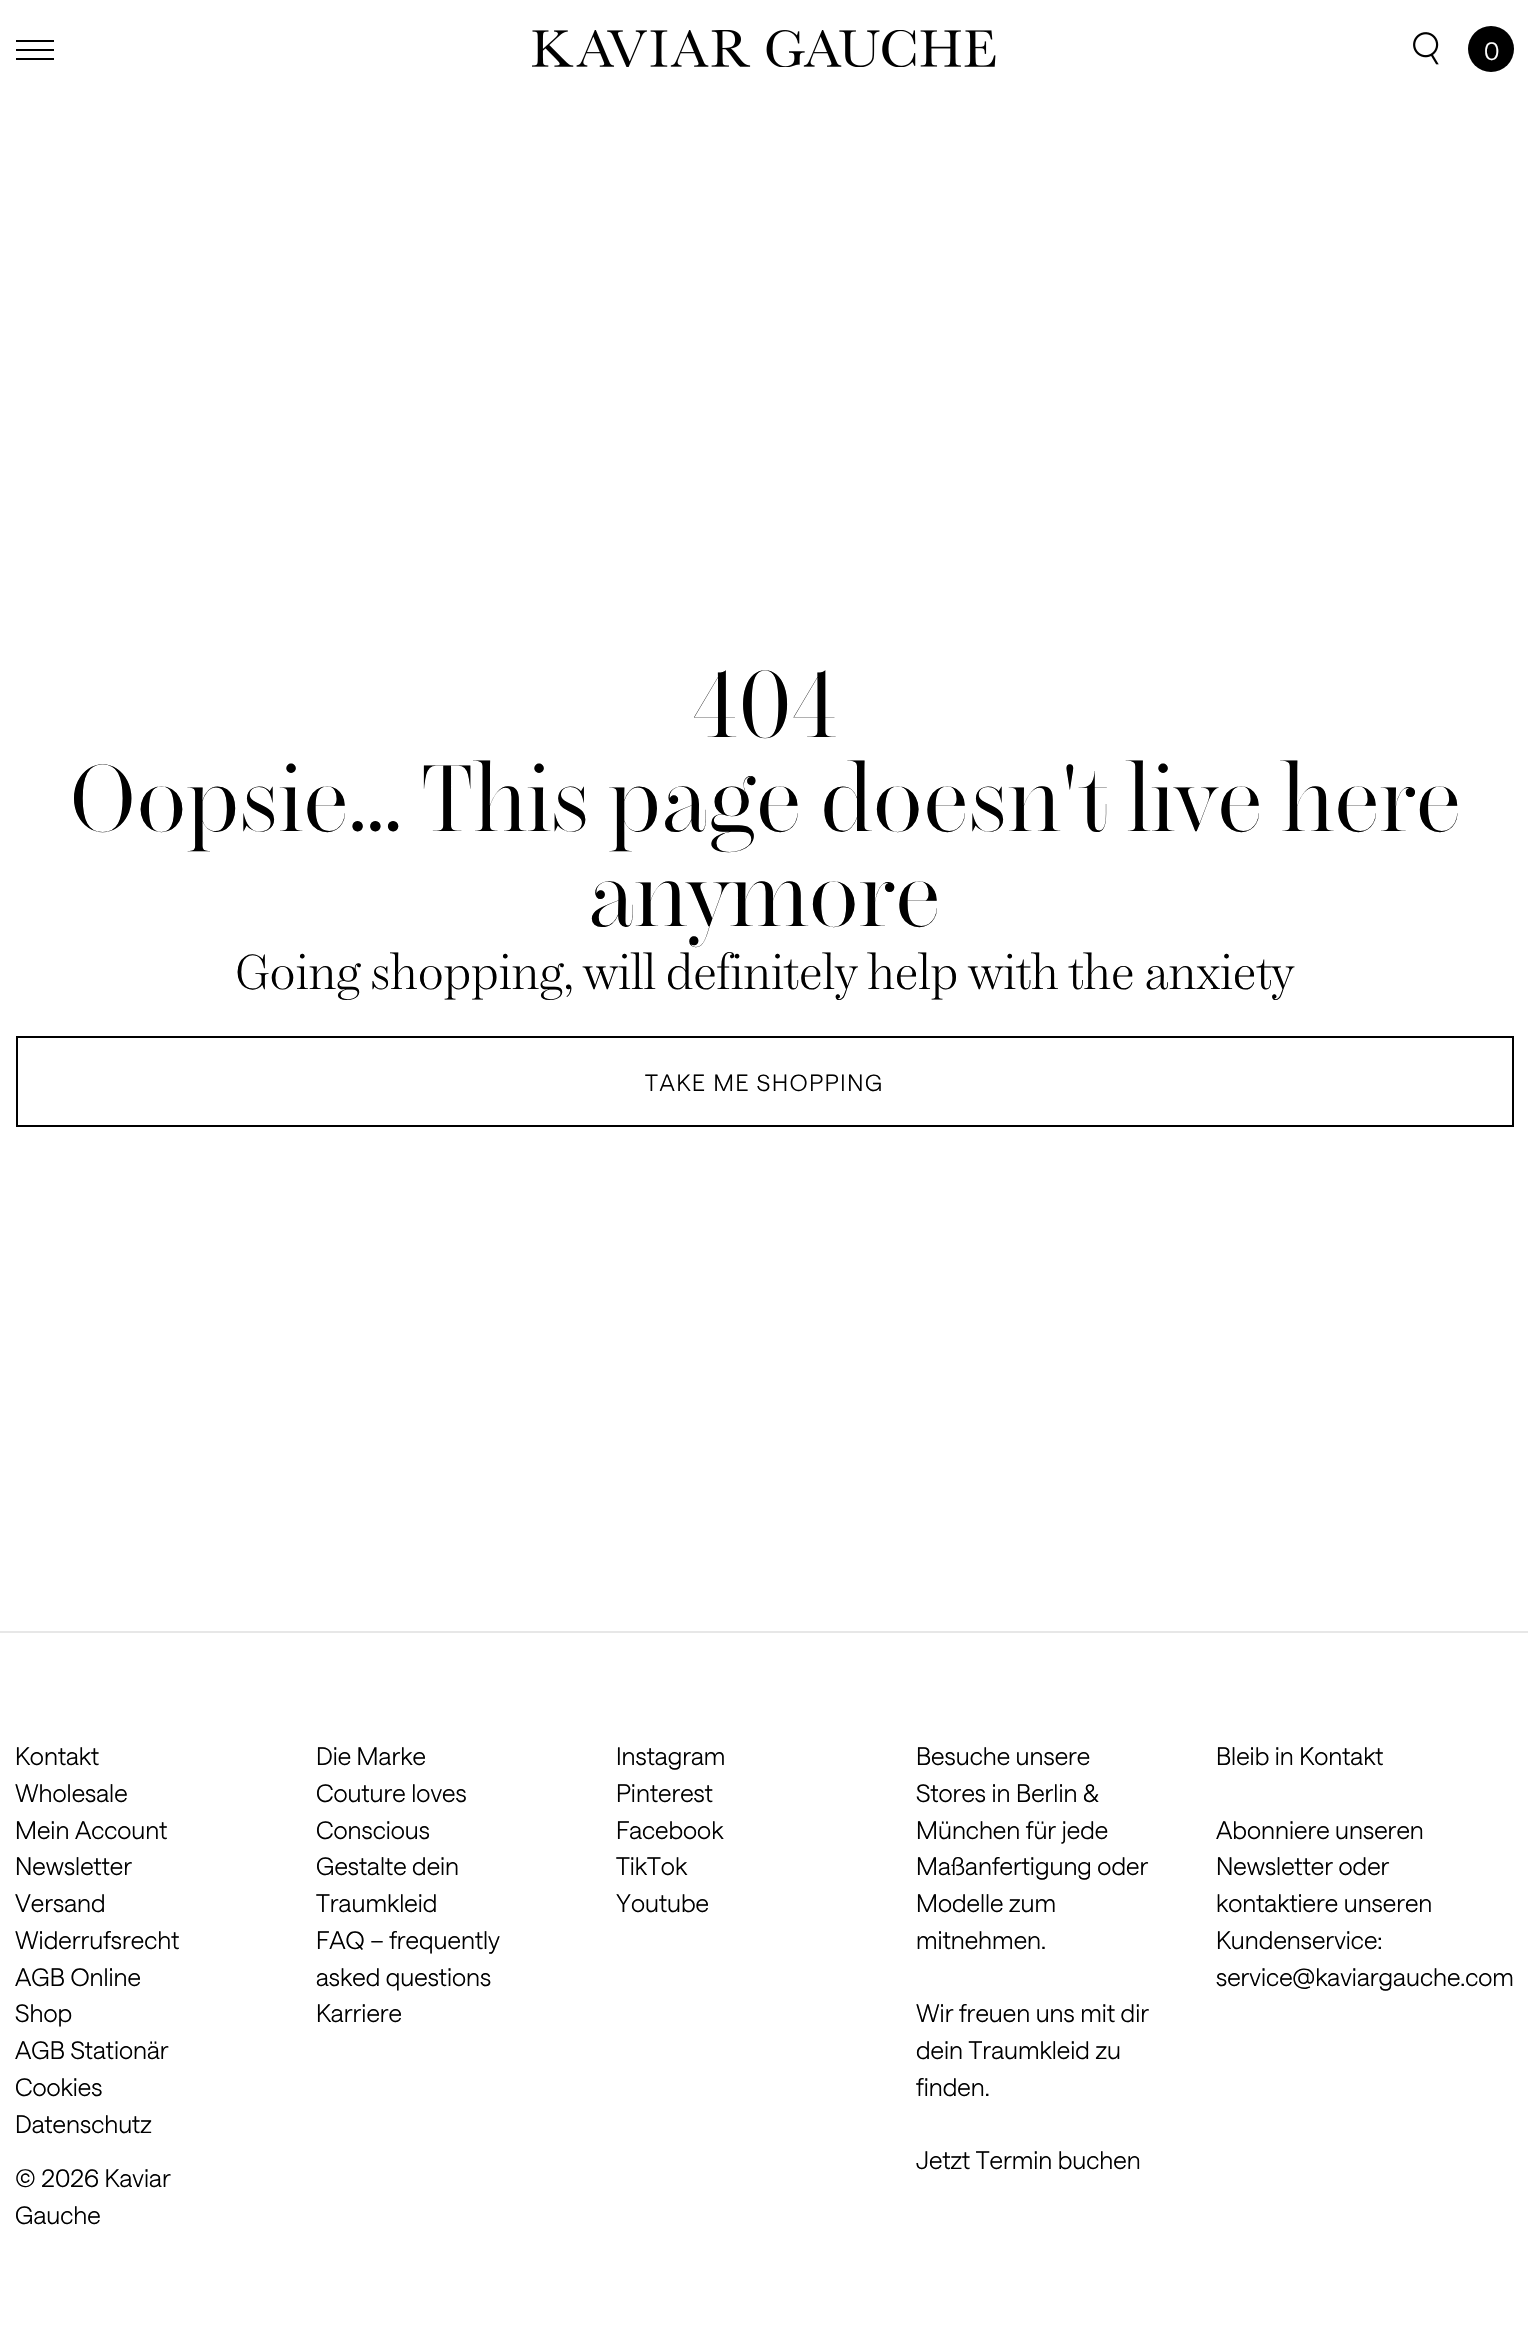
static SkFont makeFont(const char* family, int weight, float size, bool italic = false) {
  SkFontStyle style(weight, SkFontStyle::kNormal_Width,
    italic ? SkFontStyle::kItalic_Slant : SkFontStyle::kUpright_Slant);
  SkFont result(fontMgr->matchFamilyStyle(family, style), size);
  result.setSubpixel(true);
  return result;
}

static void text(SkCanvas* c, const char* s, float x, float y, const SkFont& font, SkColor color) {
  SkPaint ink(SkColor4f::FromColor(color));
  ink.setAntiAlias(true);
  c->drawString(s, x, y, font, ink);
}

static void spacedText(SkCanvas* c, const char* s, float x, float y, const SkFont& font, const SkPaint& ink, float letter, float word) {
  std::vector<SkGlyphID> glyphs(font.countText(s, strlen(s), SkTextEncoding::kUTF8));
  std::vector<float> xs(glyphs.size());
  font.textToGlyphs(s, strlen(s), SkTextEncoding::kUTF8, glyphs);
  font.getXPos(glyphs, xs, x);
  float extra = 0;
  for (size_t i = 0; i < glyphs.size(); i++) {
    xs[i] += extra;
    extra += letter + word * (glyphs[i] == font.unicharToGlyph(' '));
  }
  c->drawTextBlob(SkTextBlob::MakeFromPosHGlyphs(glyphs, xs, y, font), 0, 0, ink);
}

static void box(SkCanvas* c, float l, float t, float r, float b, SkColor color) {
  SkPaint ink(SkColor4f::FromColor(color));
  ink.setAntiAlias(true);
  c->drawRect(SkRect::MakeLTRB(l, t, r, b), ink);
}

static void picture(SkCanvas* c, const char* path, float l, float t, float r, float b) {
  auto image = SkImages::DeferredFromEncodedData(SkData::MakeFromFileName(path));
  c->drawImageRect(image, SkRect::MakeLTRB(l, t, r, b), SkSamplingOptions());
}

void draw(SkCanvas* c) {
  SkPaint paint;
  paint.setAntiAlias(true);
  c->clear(0xffffffff);
  box(c, 16, 49, 54, 51, 0xff000000);
  box(c, 16, 40, 54, 42, 0xff000000);
  box(c, 16, 58, 54, 60, 0xff000000);
  picture(c, "img_01.png", 532, 30, 996, 67);
  picture(c, "img_02.png", 1413, 32, 1439, 65);
  paint.setColor(0xff000000);
  c->drawCircle(1491, 49, 23, paint);
  SkFont face1 = makeFont("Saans", 300, 24.5f);
  text(c, "0", 1484, 60, face1, 0xffffffff);
  SkFont face2 = makeFont("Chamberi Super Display", 400, 94.5f);
  text(c, "404", 693, 737, face2, 0xff000000);
  text(c, "Oopsie... This page doesn't live here", 69, 831, face2, 0xff000000);
  text(c, "anymore", 588, 926, face2, 0xff000000);
  SkFont face3 = makeFont("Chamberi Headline", 300, 49);
  text(c, "Going shopping, will definitely help with the anxiety", 235, 989, face3, 0xff000000);
  paint.setStyle(SkPaint::kStroke_Style);
  paint.setStrokeWidth(2);
  c->drawRect(SkRect::MakeLTRB(17, 1037, 1513, 1126), paint);
  SkFont face4 = makeFont("Saans", 300, 22.75f);
  paint.setStyle(SkPaint::kFill_Style);
  spacedText(c, "TAKE ME SHOPPING", 645, 1091, face4, paint, 1.75f, 0);
  box(c, 0, 1631, 1528, 1633, 0xffe7e7e7);
  text(c, "Kontakt", 15, 1765, face1, 0xff000000);
  text(c, "Wholesale", 15, 1802, face1, 0xff000000);
  text(c, "Mein Account", 15, 1839, face1, 0xff000000);
  text(c, "Newsletter", 15, 1875, face1, 0xff000000);
  text(c, "Versand", 15, 1912, face1, 0xff000000);
  text(c, "Widerrufsrecht", 15, 1949, face1, 0xff000000);
  text(c, "AGB Online", 15, 1986, face1, 0xff000000);
  text(c, "Shop", 15, 2022, face1, 0xff000000);
  text(c, "AGB Stationär", 15, 2059, face1, 0xff000000);
  text(c, "Cookies", 15, 2096, face1, 0xff000000);
  text(c, "Datenschutz", 15, 2133, face1, 0xff000000);
  text(c, "© 2026 Kaviar", 15, 2187, face1, 0xff000000);
  text(c, "Gauche", 15, 2224, face1, 0xff000000);
  text(c, "Die Marke", 316, 1765, face1, 0xff000000);
  text(c, "Couture loves", 316, 1802, face1, 0xff000000);
  text(c, "Conscious", 316, 1839, face1, 0xff000000);
  text(c, "Gestalte dein", 316, 1875, face1, 0xff000000);
  text(c, "Traumkleid", 316, 1912, face1, 0xff000000);
  text(c, "FAQ – frequently", 316, 1949, face1, 0xff000000);
  text(c, "asked questions", 316, 1986, face1, 0xff000000);
  text(c, "Karriere", 316, 2022, face1, 0xff000000);
  text(c, "Instagram", 616, 1765, face1, 0xff000000);
  text(c, "Pinterest", 616, 1802, face1, 0xff000000);
  text(c, "Facebook", 616, 1839, face1, 0xff000000);
  text(c, "TikTok", 616, 1875, face1, 0xff000000);
  text(c, "Youtube", 616, 1912, face1, 0xff000000);
  text(c, "Besuche unsere", 916, 1765, face1, 0xff000000);
  text(c, "Stores in Berlin &", 916, 1802, face1, 0xff000000);
  text(c, "München für jede", 916, 1839, face1, 0xff000000);
  text(c, "Maßanfertigung oder", 916, 1875, face1, 0xff000000);
  text(c, "Modelle zum", 916, 1912, face1, 0xff000000);
  text(c, "mitnehmen.", 916, 1949, face1, 0xff000000);
  text(c, "Wir freuen uns mit dir", 916, 2022, face1, 0xff000000);
  text(c, "dein Traumkleid zu", 916, 2059, face1, 0xff000000);
  text(c, "finden.", 916, 2096, face1, 0xff000000);
  text(c, "Jetzt Termin buchen", 916, 2169, face1, 0xff000000);
  text(c, "Bleib in Kontakt", 1216, 1765, face1, 0xff000000);
  text(c, "Abonniere unseren", 1216, 1839, face1, 0xff000000);
  text(c, "Newsletter oder", 1216, 1875, face1, 0xff000000);
  text(c, "kontaktiere unseren", 1216, 1912, face1, 0xff000000);
  text(c, "Kundenservice:", 1216, 1949, face1, 0xff000000);
  text(c, "service@kaviargauche.com", 1216, 1986, face1, 0xff000000);
}
